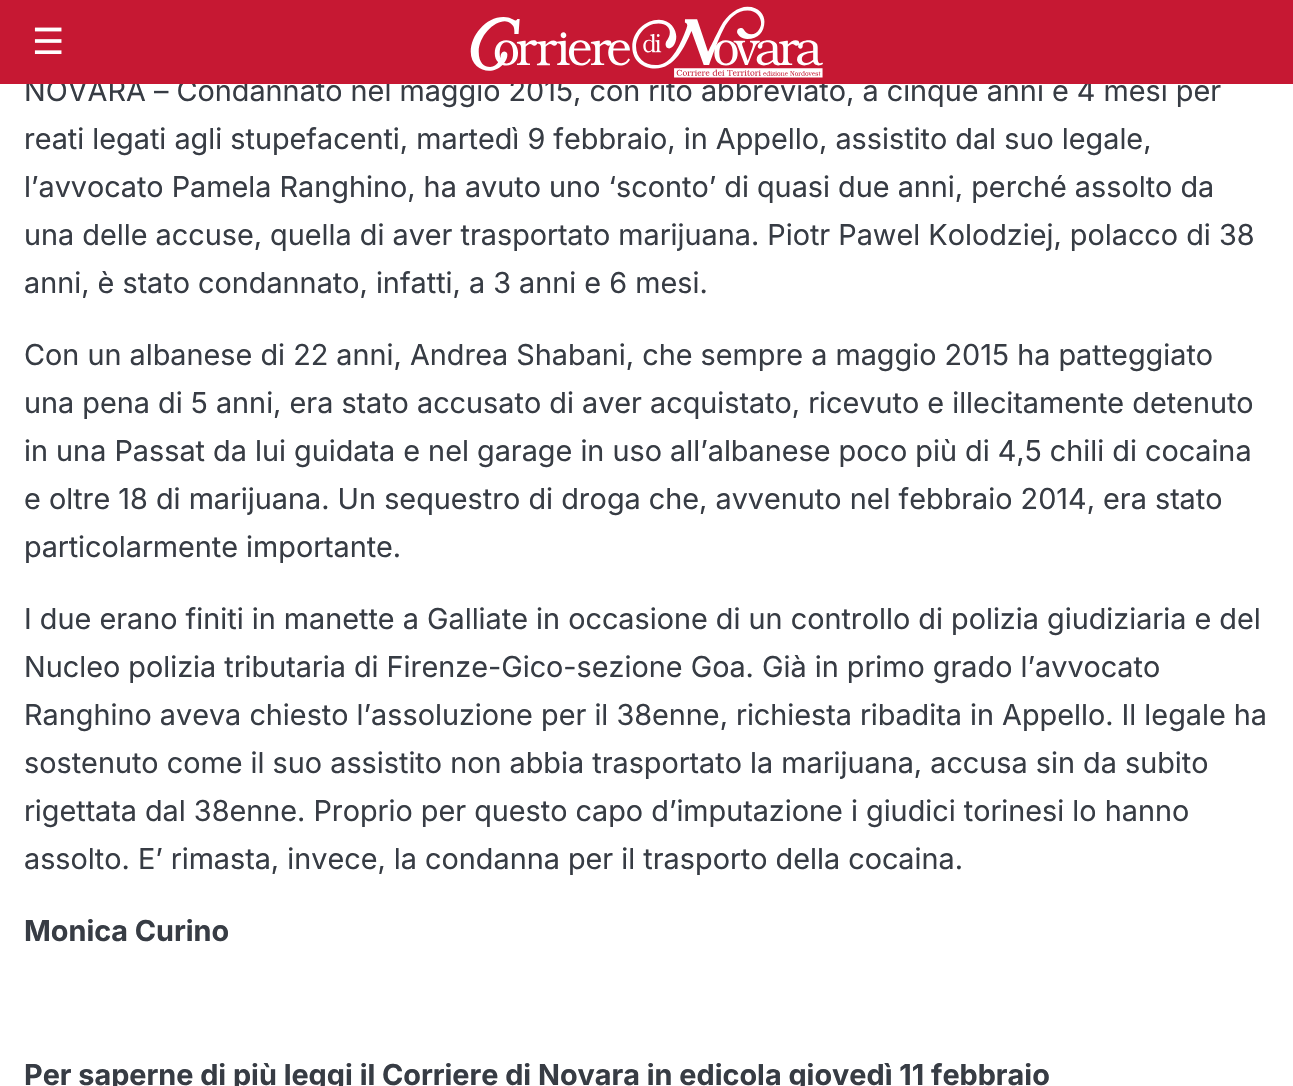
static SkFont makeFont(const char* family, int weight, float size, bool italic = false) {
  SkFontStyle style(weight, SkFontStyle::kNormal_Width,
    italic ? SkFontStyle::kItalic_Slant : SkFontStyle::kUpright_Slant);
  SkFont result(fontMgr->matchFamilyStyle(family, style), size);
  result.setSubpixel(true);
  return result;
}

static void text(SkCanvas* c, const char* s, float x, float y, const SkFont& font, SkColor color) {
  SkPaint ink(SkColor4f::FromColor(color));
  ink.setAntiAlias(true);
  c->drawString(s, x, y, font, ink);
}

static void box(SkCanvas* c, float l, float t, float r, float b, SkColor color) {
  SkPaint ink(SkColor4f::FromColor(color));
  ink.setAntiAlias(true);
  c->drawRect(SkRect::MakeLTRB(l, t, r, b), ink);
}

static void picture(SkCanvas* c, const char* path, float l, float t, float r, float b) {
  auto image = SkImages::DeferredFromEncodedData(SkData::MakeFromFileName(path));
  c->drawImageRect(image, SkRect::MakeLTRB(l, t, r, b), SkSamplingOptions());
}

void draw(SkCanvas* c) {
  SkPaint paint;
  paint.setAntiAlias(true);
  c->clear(0xffffffff);
  SkFont face1 = makeFont("Inter", 400, 28.8f);
  text(c, "NOVARA – Condannato nel maggio 2015, con rito abbreviato, a cinque anni e 4 mesi per", 24, 101, face1, 0xff373c44);
  box(c, 0, 0, 1293, 84, 0xffc61833);
  SkFont face2 = makeFont("DejaVu Sans", 400, 36);
  text(c, "☰", 32, 54, face2, 0xffffffff);
  picture(c, "img_01.png", 470, 6, 823, 78);
  text(c, "reati legati agli stupefacenti, martedì 9 febbraio, in Appello, assistito dal suo legale,", 24, 149, face1, 0xff373c44);
  text(c, "l’avvocato Pamela Ranghino, ha avuto uno ‘sconto’ di quasi due anni, perché assolto da", 24, 197, face1, 0xff373c44);
  text(c, "una delle accuse, quella di aver trasportato marijuana. Piotr Pawel Kolodziej, polacco di 38", 24, 245, face1, 0xff373c44);
  text(c, "anni, è stato condannato, infatti, a 3 anni e 6 mesi.", 24, 293, face1, 0xff373c44);
  text(c, "Con un albanese di 22 anni, Andrea Shabani, che sempre a maggio 2015 ha patteggiato", 24, 365, face1, 0xff373c44);
  text(c, "una pena di 5 anni, era stato accusato di aver acquistato, ricevuto e illecitamente detenuto", 24, 413, face1, 0xff373c44);
  text(c, "in una Passat da lui guidata e nel garage in uso all’albanese poco più di 4,5 chili di cocaina", 24, 461, face1, 0xff373c44);
  text(c, "e oltre 18 di marijuana. Un sequestro di droga che, avvenuto nel febbraio 2014, era stato", 24, 509, face1, 0xff373c44);
  text(c, "particolarmente importante.", 24, 557, face1, 0xff373c44);
  text(c, "I due erano finiti in manette a Galliate in occasione di un controllo di polizia giudiziaria e del", 24, 629, face1, 0xff373c44);
  text(c, "Nucleo polizia tributaria di Firenze-Gico-sezione Goa. Già in primo grado l’avvocato", 24, 677, face1, 0xff373c44);
  text(c, "Ranghino aveva chiesto l’assoluzione per il 38enne, richiesta ribadita in Appello. Il legale ha", 24, 725, face1, 0xff373c44);
  text(c, "sostenuto come il suo assistito non abbia trasportato la marijuana, accusa sin da subito", 24, 773, face1, 0xff373c44);
  text(c, "rigettata dal 38enne. Proprio per questo capo d’imputazione i giudici torinesi lo hanno", 24, 821, face1, 0xff373c44);
  text(c, "assolto. E’ rimasta, invece, la condanna per il trasporto della cocaina.", 24, 869, face1, 0xff373c44);
  SkFont face3 = makeFont("Inter", 700, 28.8f);
  text(c, "Monica Curino", 24, 941, face3, 0xff373c44);
  text(c, "Per saperne di più leggi il Corriere di Novara in edicola giovedì 11 febbraio", 24, 1085, face3, 0xff373c44);
}
